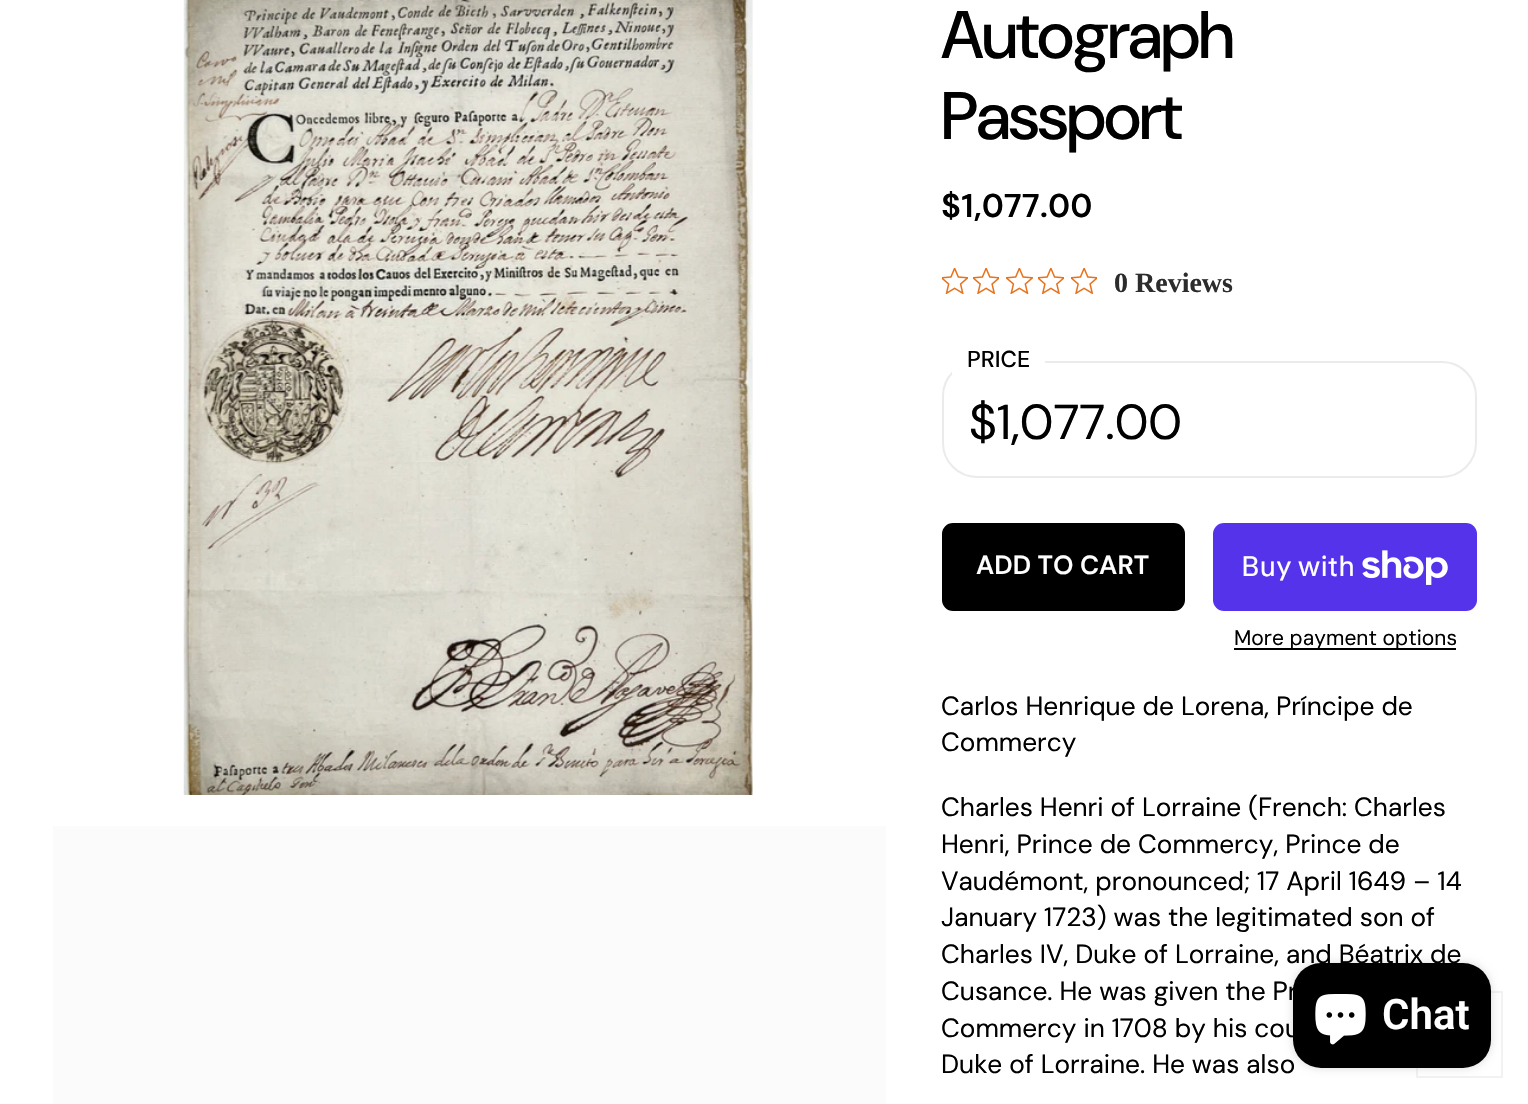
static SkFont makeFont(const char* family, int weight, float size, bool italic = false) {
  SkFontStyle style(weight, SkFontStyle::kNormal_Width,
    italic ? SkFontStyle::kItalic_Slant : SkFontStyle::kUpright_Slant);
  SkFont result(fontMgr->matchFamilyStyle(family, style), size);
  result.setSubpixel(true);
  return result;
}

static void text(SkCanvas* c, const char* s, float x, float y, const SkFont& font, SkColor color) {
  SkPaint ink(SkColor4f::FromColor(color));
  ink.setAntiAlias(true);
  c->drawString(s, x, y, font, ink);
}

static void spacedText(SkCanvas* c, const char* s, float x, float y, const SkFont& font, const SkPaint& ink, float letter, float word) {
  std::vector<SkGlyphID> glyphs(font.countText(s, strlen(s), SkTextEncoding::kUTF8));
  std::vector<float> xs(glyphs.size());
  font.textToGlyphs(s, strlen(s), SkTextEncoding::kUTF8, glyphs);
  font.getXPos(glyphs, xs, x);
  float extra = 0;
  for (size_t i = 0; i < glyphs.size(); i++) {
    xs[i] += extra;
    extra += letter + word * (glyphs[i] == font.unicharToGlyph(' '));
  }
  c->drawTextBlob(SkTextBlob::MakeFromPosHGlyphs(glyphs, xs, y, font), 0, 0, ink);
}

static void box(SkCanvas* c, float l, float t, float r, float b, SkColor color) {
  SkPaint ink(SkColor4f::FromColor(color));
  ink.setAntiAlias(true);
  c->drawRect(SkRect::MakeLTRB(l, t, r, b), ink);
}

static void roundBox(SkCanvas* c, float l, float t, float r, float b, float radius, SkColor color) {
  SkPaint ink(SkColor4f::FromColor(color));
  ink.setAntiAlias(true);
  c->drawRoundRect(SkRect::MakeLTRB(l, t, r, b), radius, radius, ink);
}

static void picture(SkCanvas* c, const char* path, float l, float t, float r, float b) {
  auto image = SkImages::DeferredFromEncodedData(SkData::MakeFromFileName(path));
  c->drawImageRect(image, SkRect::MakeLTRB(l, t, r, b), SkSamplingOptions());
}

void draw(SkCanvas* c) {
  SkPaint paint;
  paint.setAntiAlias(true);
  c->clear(0xffffffff);
  picture(c, "img_01.png", 183, 0, 753, 795);
  box(c, 53, 826, 886, 1104, 0xfffbfbfb);
  SkFont face1 = makeFont("DM Sans", 500, 67);
  paint.setColor(0xff000000);
  spacedText(c, "Autograph", 941, 58, face1, paint, -2, 0);
  spacedText(c, "Passport", 941, 139, face1, paint, -2, 0);
  SkFont face2 = makeFont("DM Sans", 600, 33);
  text(c, "$1,077.00", 941, 217, face2, 0xff000000);
  picture(c, "img_02.png", 942, 268, 968, 294);
  picture(c, "img_03.png", 973, 268, 999, 294);
  picture(c, "img_04.png", 1006, 268, 1033, 294);
  picture(c, "img_05.png", 1038, 268, 1064, 294);
  picture(c, "img_03.png", 1071, 268, 1097, 294);
  SkFont face3 = makeFont("Liberation Serif", 700, 28);
  text(c, "0 Reviews", 1114, 292, face3, 0xff2c2c2c);
  paint.setStyle(SkPaint::kStroke_Style);
  paint.setStrokeWidth(2);
  paint.setColor(0xffebebeb);
  c->drawRoundRect(SkRect::MakeLTRB(943, 362, 1476, 477), 34, 34, paint);
  box(c, 952, 361, 1045, 374, 0xffffffff);
  SkFont face4 = makeFont("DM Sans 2", 500, 23);
  text(c, "PRICE", 967, 367, face4, 0xff000000);
  SkFont face5 = makeFont("DM Sans 2", 400, 49);
  text(c, "$1,077.00", 969, 439, face5, 0xff000000);
  paint.setStyle(SkPaint::kFill_Style);
  paint.setColor(0xff000000);
  c->drawRoundRect(SkRect::MakeLTRB(943, 524, 1184, 610), 10, 10, paint);
  paint.setStyle(SkPaint::kStroke_Style);
  c->drawRoundRect(SkRect::MakeLTRB(943, 524, 1184, 610), 10, 10, paint);
  SkFont face6 = makeFont("DM Sans 2", 600, 26.25f);
  text(c, "ADD TO CART", 976, 574, face6, 0xffffffff);
  roundBox(c, 1213, 523, 1477, 611, 11, 0xff5433eb);
  SkFont face7 = makeFont("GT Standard", 400, 28);
  text(c, "Buy with", 1241, 576, face7, 0xffffffff);
  picture(c, "img_06.png", 1362, 550, 1448, 585);
  box(c, 1234, 648, 1456, 650, 0xff000000);
  SkFont face8 = makeFont("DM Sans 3", 400, 21);
  text(c, "More payment options", 1234, 645, face8, 0xff000000);
  SkFont face9 = makeFont("DM Sans", 400, 26.25f);
  text(c, "Carlos Henrique de Lorena, Príncipe de", 941, 715, face9, 0xff000000);
  text(c, "Commercy", 941, 751, face9, 0xff000000);
  text(c, "Charles Henri of Lorraine (French: Charles", 941, 816, face9, 0xff000000);
  text(c, "Henri, Prince de Commercy, Prince de", 941, 853, face9, 0xff000000);
  text(c, "Vaudémont, pronounced; 17 April 1649 – 14", 941, 890, face9, 0xff000000);
  text(c, "January 1723) was the legitimated son of", 941, 926, face9, 0xff000000);
  text(c, "Charles IV, Duke of Lorraine, and Béatrix de", 941, 963, face9, 0xff000000);
  text(c, "Cusance. He was given the Pr", 941, 1000, face9, 0xff000000);
  text(c, "Commercy in 1708 by his cou", 941, 1037, face9, 0xff000000);
  text(c, "Duke of Lorraine. He was also", 941, 1073, face9, 0xff000000);
  paint.setColor(0x0d000000);
  c->drawRect(SkRect::MakeLTRB(1417, 992, 1502, 1077), paint);
  paint.setStyle(SkPaint::kFill_Style);
  paint.setColor(0x26000000);
  paint.setMaskFilter(SkMaskFilter::MakeBlur(kNormal_SkBlurStyle, 4.5f));
  c->drawRoundRect(SkRect::MakeLTRB(1293, 963, 1491, 1068), 28, 28, paint);
  paint.setMaskFilter(nullptr);
  roundBox(c, 1293, 963, 1491, 1068, 28, 0xff000000);
  picture(c, "img_07.png", 1315, 994, 1366, 1045);
  SkFont face10 = makeFont("Roboto", 600, 42);
  text(c, "Chat", 1382, 1029, face10, 0xffffffff);
}
